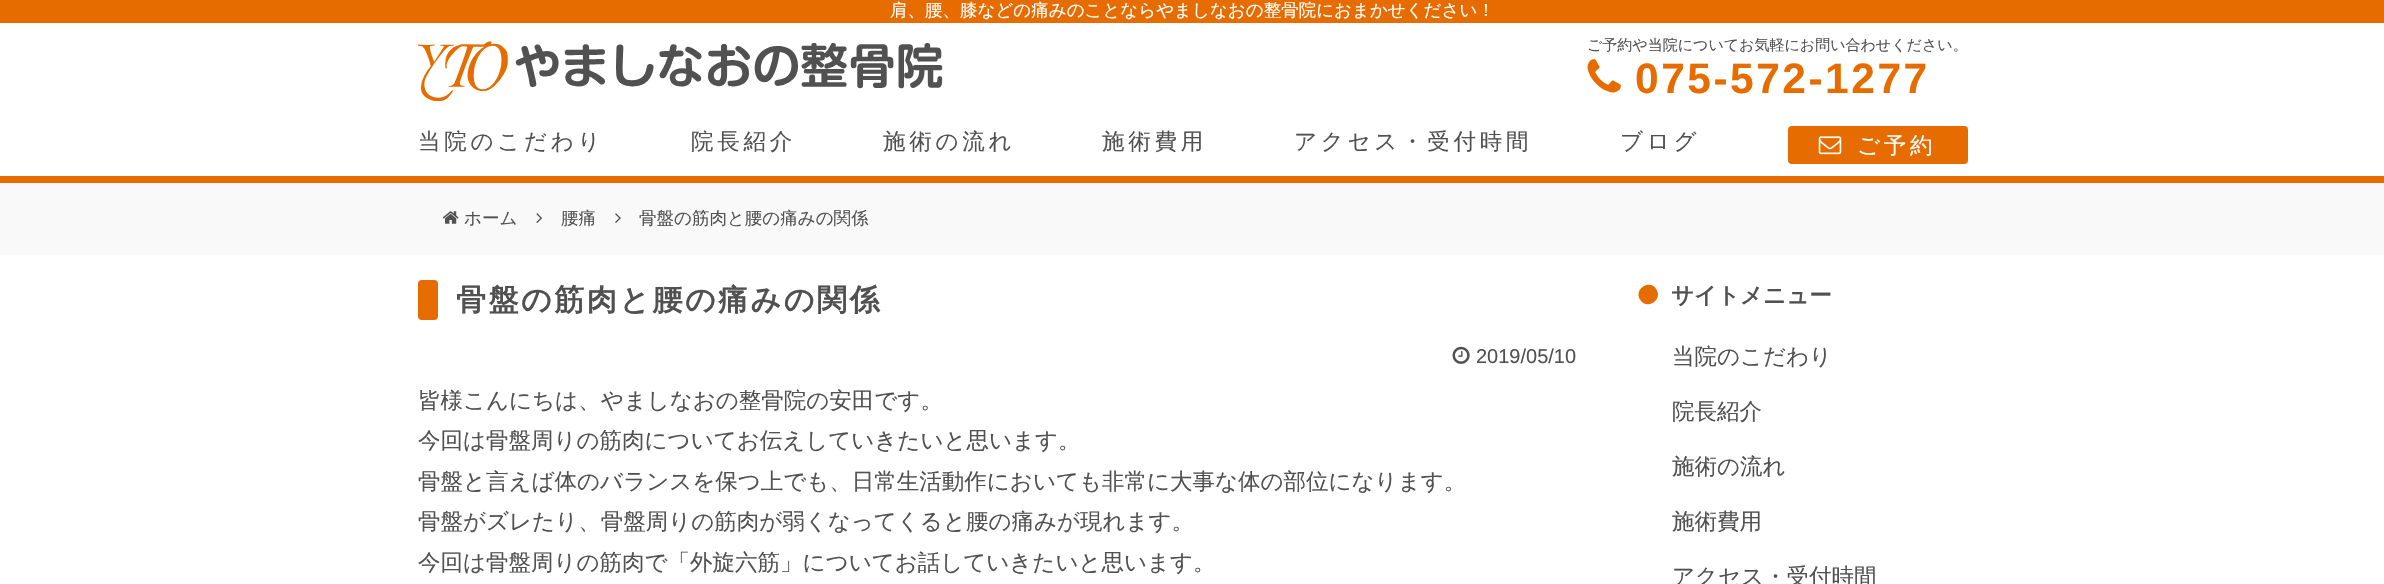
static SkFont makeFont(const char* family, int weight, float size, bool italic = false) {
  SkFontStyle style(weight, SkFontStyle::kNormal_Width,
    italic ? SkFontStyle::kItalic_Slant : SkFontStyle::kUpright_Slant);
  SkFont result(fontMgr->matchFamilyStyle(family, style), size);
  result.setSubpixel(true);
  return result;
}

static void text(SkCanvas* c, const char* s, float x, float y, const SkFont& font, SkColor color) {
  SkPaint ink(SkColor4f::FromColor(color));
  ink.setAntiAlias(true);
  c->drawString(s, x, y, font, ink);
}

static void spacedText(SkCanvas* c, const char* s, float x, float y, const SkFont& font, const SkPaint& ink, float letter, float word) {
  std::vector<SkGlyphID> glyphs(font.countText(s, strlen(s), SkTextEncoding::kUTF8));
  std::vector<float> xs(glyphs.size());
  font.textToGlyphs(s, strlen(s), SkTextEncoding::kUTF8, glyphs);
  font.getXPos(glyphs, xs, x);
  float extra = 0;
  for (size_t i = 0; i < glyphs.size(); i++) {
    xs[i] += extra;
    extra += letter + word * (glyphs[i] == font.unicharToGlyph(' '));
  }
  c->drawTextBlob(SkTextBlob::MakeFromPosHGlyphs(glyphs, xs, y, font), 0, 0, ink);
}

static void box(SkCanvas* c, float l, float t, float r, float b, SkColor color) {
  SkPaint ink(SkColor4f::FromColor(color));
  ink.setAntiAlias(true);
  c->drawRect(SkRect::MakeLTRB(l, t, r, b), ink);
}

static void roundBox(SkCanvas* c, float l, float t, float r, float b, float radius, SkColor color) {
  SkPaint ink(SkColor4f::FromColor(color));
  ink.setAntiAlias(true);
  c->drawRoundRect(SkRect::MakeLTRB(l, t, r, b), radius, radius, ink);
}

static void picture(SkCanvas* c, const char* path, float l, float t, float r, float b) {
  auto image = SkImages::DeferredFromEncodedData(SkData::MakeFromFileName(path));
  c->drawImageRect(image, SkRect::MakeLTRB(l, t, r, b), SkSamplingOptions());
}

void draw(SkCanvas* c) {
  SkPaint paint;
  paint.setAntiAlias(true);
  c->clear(0xffffffff);
  box(c, 0, 176, 2384, 183, 0xffe76c00);
  box(c, 0, 0, 2384, 23, 0xffe76c00);
  SkFont face1 = makeFont("WenQuanYi Zen Hei", 500, 17.5f);
  text(c, "肩、腰、膝などの痛みのことならやましなおの整骨院におまかせください！", 890, 16, face1, 0xffffffff);
  picture(c, "img_01.png", 418, 41, 943, 101);
  SkFont face2 = makeFont("WenQuanYi Zen Hei", 500, 15);
  text(c, "ご予約や当院についてお気軽にお問い合わせください。", 1587, 50, face2, 0xff515151);
  picture(c, "img_02.png", 1587, 59, 1621, 93);
  SkFont face3 = makeFont("Liberation Sans", 700, 42.5f);
  paint.setColor(0xffe76c00);
  spacedText(c, "075-572-1277", 1635, 93, face3, paint, 2.5f, 0);
  SkFont face4 = makeFont("WenQuanYi Zen Hei", 500, 22.5f);
  paint.setColor(0xff515151);
  spacedText(c, "当院のこだわり", 418, 149, face4, paint, 3.75f, 0);
  spacedText(c, "院長紹介", 691, 149, face4, paint, 3.75f, 0);
  spacedText(c, "施術の流れ", 883, 149, face4, paint, 3.75f, 0);
  spacedText(c, "施術費用", 1102, 149, face4, paint, 3.75f, 0);
  spacedText(c, "アクセス・受付時間", 1294, 149, face4, paint, 3.75f, 0);
  spacedText(c, "ブログ", 1620, 149, face4, paint, 3.75f, 0);
  roundBox(c, 1788, 126, 1968, 164, 4, 0xffe76c00);
  picture(c, "img_03.png", 1818, 136, 1842, 155);
  paint.setColor(0xffffffff);
  spacedText(c, "ご予約", 1857, 153, face4, paint, 3.75f, 0);
  box(c, 0, 183, 2384, 255, 0xfff9f9f9);
  picture(c, "img_04.png", 442, 211, 459, 224);
  text(c, "ホーム", 464, 224, face1, 0xff515151);
  picture(c, "img_05.png", 536, 213, 542, 223);
  text(c, "腰痛", 561, 224, face1, 0xff515151);
  picture(c, "img_06.png", 615, 213, 621, 223);
  text(c, "骨盤の筋肉と腰の痛みの関係", 639, 224, face1, 0xff515151);
  roundBox(c, 418, 280, 438, 320, 4, 0xffe76c00);
  SkFont face5 = makeFont("WenQuanYi Zen Hei", 700, 30);
  paint.setColor(0xff515151);
  spacedText(c, "骨盤の筋肉と腰の痛みの関係", 456, 310, face5, paint, 2.5f, 0);
  picture(c, "img_07.png", 1452, 346, 1470, 364);
  SkFont face6 = makeFont("Liberation Sans", 400, 20);
  text(c, "2019/05/10", 1476, 363, face6, 0xff515151);
  text(c, "皆様こんにちは、やましなおの整骨院の安田です。", 418, 408, face4, 0xff515151);
  text(c, "今回は骨盤周りの筋肉についてお伝えしていきたいと思います。", 418, 448, face4, 0xff515151);
  text(c, "骨盤と言えば体のバランスを保つ上でも、日常生活動作においても非常に大事な体の部位になります。", 418, 489, face4, 0xff515151);
  text(c, "骨盤がズレたり、骨盤周りの筋肉が弱くなってくると腰の痛みが現れます。", 418, 529, face4, 0xff515151);
  text(c, "今回は骨盤周りの筋肉で「外旋六筋」についてお話していきたいと思います。", 418, 570, face4, 0xff515151);
  paint.setColor(0xffe76c00);
  c->drawPath(SkPathBuilder().moveTo(1656.5f, 289.5f).cubicTo(1663, 300.5f, 1646.5f, 310.5f, 1640, 299.5f).cubicTo(1633.5f, 288.5f, 1650.5f, 278.5f, 1656.5f, 289.5f).close().detach(), paint);
  SkFont face7 = makeFont("WenQuanYi Zen Hei", 700, 22.5f);
  text(c, "サイトメニュー", 1671, 303, face7, 0xff515151);
  text(c, "当院のこだわり", 1672, 364, face4, 0xff515151);
  text(c, "院長紹介", 1672, 419, face4, 0xff515151);
  text(c, "施術の流れ", 1672, 474, face4, 0xff515151);
  text(c, "施術費用", 1672, 529, face4, 0xff515151);
  text(c, "アクセス・受付時間", 1672, 584, face4, 0xff515151);
}
